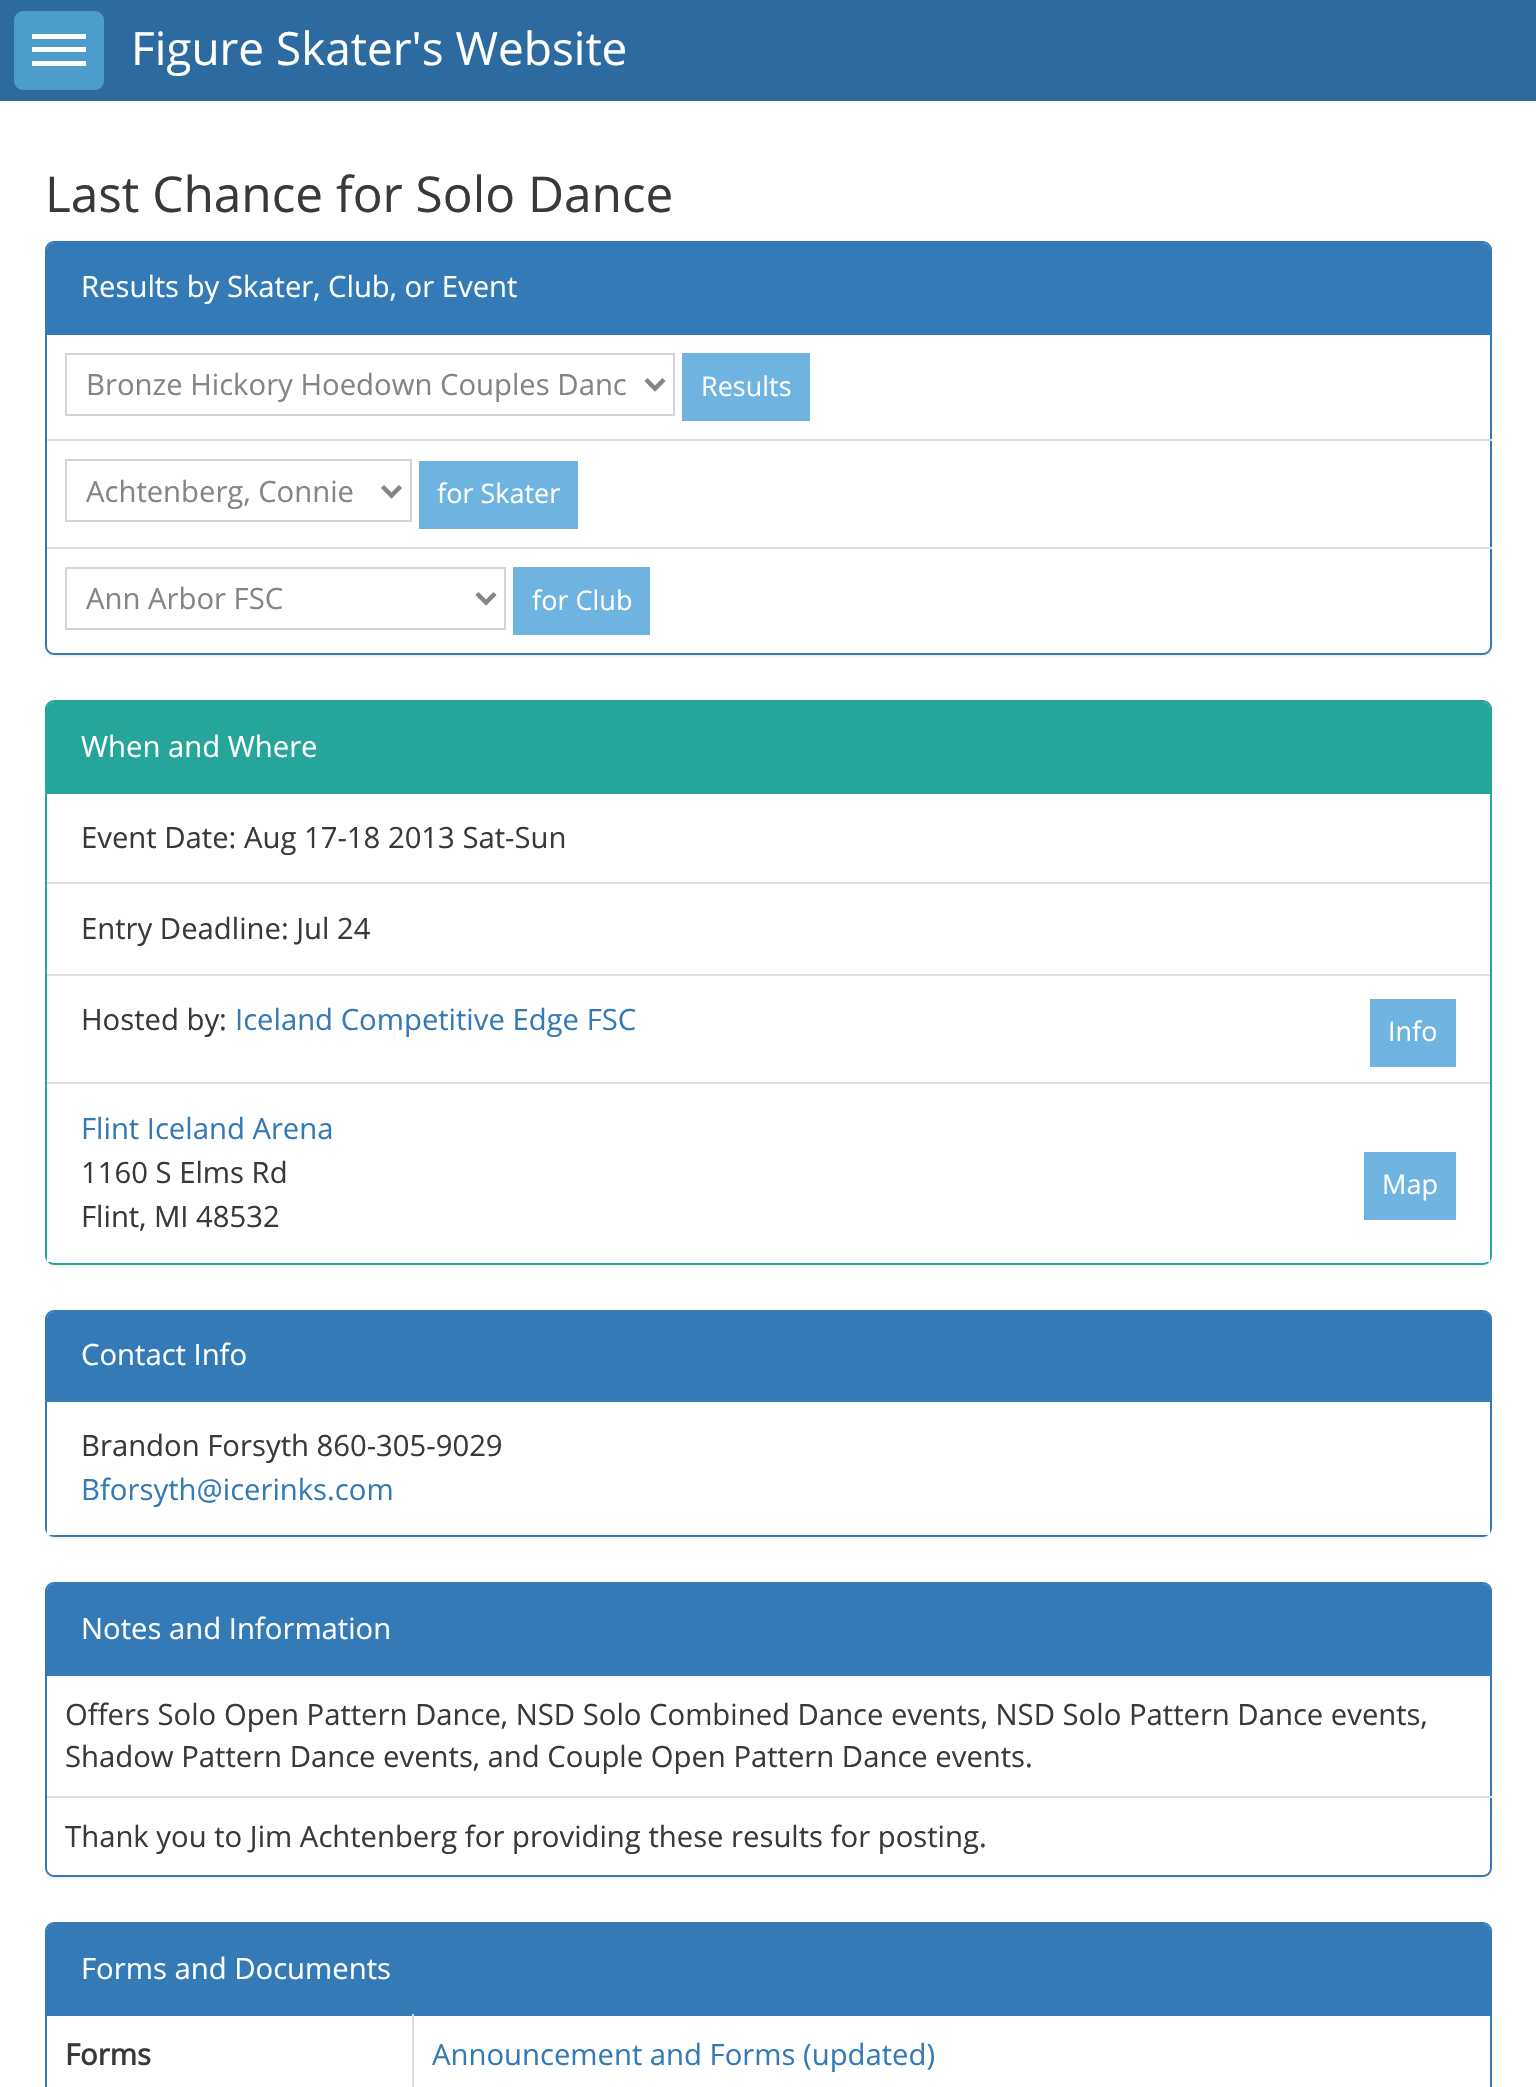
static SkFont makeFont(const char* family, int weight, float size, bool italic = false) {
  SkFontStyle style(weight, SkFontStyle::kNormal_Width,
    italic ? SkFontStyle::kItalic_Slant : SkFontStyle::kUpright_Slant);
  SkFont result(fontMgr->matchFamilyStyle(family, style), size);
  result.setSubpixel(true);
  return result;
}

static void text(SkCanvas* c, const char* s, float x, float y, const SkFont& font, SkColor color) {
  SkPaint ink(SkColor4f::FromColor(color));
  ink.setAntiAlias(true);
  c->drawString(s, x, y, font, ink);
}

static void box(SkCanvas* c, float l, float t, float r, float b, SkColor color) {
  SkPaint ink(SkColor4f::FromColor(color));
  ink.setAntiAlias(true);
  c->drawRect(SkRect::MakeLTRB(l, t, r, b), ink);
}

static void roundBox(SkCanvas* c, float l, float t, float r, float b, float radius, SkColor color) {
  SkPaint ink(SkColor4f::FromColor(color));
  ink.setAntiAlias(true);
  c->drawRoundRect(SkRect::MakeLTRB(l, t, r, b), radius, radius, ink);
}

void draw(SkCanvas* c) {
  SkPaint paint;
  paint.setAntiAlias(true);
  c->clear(0xffffffff);
  box(c, 0, 0, 1536, 101, 0xff2c6aa0);
  roundBox(c, 14, 11, 104, 90, 9, 0xff4d9dcc);
  box(c, 32, 34, 86, 39, 0xffffffff);
  box(c, 32, 47, 86, 52, 0xffffffff);
  box(c, 32, 61, 86, 66, 0xffffffff);
  SkFont face1 = makeFont("Open Sans", 400, 45.9f);
  text(c, "Figure Skater's Website", 131, 65, face1, 0xffffffff);
  SkFont face2 = makeFont("Open Sans", 400, 49.5f);
  text(c, "Last Chance for Solo Dance", 45, 212, face2, 0xff393939);
  paint.setColor(0x0d000000);
  paint.setMaskFilter(SkMaskFilter::MakeBlur(kNormal_SkBlurStyle, 1));
  c->drawRoundRect(SkRect::MakeLTRB(45, 243, 1492, 657), 9, 9, paint);
  paint.setMaskFilter(nullptr);
  paint.setColor(0xffffffff);
  c->drawRoundRect(SkRect::MakeLTRB(46, 242, 1491, 654), 8, 8, paint);
  paint.setStyle(SkPaint::kStroke_Style);
  paint.setStrokeWidth(2);
  paint.setColor(0xff337ab7);
  c->drawRoundRect(SkRect::MakeLTRB(46, 242, 1491, 654), 8, 8, paint);
  paint.setStyle(SkPaint::kFill_Style);
  c->drawPath(SkPathBuilder().moveTo(54, 243).lineTo(1483, 243).cubicTo(1487, 243, 1490, 246, 1490, 250).lineTo(1490, 335).lineTo(47, 335).lineTo(47, 250).cubicTo(47, 246, 50, 243, 54, 243).close().detach(), paint);
  SkFont face3 = makeFont("Open Sans", 400, 29.25f);
  text(c, "Results by Skater, Club, or Event", 81, 297, face3, 0xffffffff);
  paint.setStyle(SkPaint::kStroke_Style);
  paint.setColor(0xffd5d5d5);
  c->drawRect(SkRect::MakeLTRB(66, 354, 674, 415), paint);
  paint.setStrokeWidth(4.5f);
  paint.setColor(0xff858585);
  c->drawPath(SkPathBuilder().moveTo(646, 379.5f).lineTo(655, 388.5f).lineTo(664, 379.5f).detach(), paint);
  text(c, "Bronze Hickory Hoedown Couples Danc", 86, 395, face3, 0xff858585);
  box(c, 682, 353, 810, 421, 0xff6fb3e0);
  SkFont face4 = makeFont("Open Sans", 400, 27);
  text(c, "Results", 701, 396, face4, 0xffffffff);
  box(c, 47, 439, 1492, 441, 0xffdddddd);
  paint.setStrokeWidth(2);
  paint.setColor(0xffd5d5d5);
  c->drawRect(SkRect::MakeLTRB(66, 460, 411, 521), paint);
  paint.setStrokeWidth(4.5f);
  paint.setColor(0xff858585);
  c->drawPath(SkPathBuilder().moveTo(382.5f, 486.5f).lineTo(391.5f, 495.5f).lineTo(400.5f, 486.5f).detach(), paint);
  text(c, "Achtenberg, Connie", 86, 502, face3, 0xff858585);
  box(c, 419, 461, 578, 529, 0xff6fb3e0);
  text(c, "for Skater", 437, 503, face4, 0xffffffff);
  box(c, 47, 547, 1492, 549, 0xffdddddd);
  paint.setStrokeWidth(2);
  paint.setColor(0xffd5d5d5);
  c->drawRect(SkRect::MakeLTRB(66, 568, 505, 629), paint);
  paint.setStrokeWidth(4.5f);
  paint.setColor(0xff858585);
  c->drawPath(SkPathBuilder().moveTo(477, 593.5f).lineTo(486, 602.5f).lineTo(495, 593.5f).detach(), paint);
  text(c, "Ann Arbor FSC", 86, 609, face3, 0xff858585);
  box(c, 513, 567, 650, 635, 0xff6fb3e0);
  text(c, "for Club", 532, 610, face4, 0xffffffff);
  paint.setStyle(SkPaint::kFill_Style);
  paint.setColor(0x0d000000);
  paint.setMaskFilter(SkMaskFilter::MakeBlur(kNormal_SkBlurStyle, 1));
  c->drawRoundRect(SkRect::MakeLTRB(45, 702, 1492, 1267), 9, 9, paint);
  paint.setMaskFilter(nullptr);
  paint.setColor(0xffffffff);
  c->drawRoundRect(SkRect::MakeLTRB(46, 701, 1491, 1264), 8, 8, paint);
  paint.setStyle(SkPaint::kStroke_Style);
  paint.setStrokeWidth(2);
  paint.setColor(0xff26a69a);
  c->drawRoundRect(SkRect::MakeLTRB(46, 701, 1491, 1264), 8, 8, paint);
  paint.setStyle(SkPaint::kFill_Style);
  c->drawPath(SkPathBuilder().moveTo(54, 702).lineTo(1483, 702).cubicTo(1487, 702, 1490, 705, 1490, 709).lineTo(1490, 794).lineTo(47, 794).lineTo(47, 709).cubicTo(47, 705, 50, 702, 54, 702).close().detach(), paint);
  text(c, "When and Where", 81, 757, face3, 0xffffffff);
  box(c, 47, 882, 1490, 884, 0xffdddddd);
  text(c, "Event Date: Aug 17-18 2013 Sat-Sun", 81, 848, face3, 0xff393939);
  box(c, 47, 974, 1490, 976, 0xffdddddd);
  text(c, "Entry Deadline: Jul 24", 81, 939, face3, 0xff393939);
  text(c, "Hosted by:", 81, 1030, face3, 0xff393939);
  text(c, "Iceland Competitive Edge FSC", 235, 1030, face3, 0xff337ab7);
  box(c, 1370, 999, 1456, 1067, 0xff6fb3e0);
  text(c, "Info", 1388, 1041, face4, 0xffffffff);
  box(c, 47, 1256, 1490, 1262, 0xffffffff);
  box(c, 47, 1082, 1490, 1084, 0xffdddddd);
  text(c, "Flint Iceland Arena", 81, 1139, face3, 0xff337ab7);
  text(c, "1160 S Elms Rd", 81, 1183, face3, 0xff393939);
  box(c, 1364, 1152, 1456, 1220, 0xff6fb3e0);
  text(c, "Map", 1382, 1194, face4, 0xffffffff);
  text(c, "Flint, MI 48532", 81, 1227, face3, 0xff393939);
  paint.setColor(0x0d000000);
  paint.setMaskFilter(SkMaskFilter::MakeBlur(kNormal_SkBlurStyle, 1));
  c->drawRoundRect(SkRect::MakeLTRB(45, 1312, 1492, 1539), 9, 9, paint);
  paint.setMaskFilter(nullptr);
  paint.setStyle(SkPaint::kStroke_Style);
  paint.setColor(0xff337ab7);
  c->drawRoundRect(SkRect::MakeLTRB(46, 1311, 1491, 1536), 8, 8, paint);
  paint.setStyle(SkPaint::kFill_Style);
  c->drawPath(SkPathBuilder().moveTo(54, 1312).lineTo(1483, 1312).cubicTo(1487, 1312, 1490, 1315, 1490, 1319).lineTo(1490, 1402).lineTo(47, 1402).lineTo(47, 1319).cubicTo(47, 1315, 50, 1312, 54, 1312).close().detach(), paint);
  text(c, "Contact Info", 81, 1365, face3, 0xffffffff);
  box(c, 47, 1402, 1490, 1535, 0xffffffff);
  text(c, "Brandon Forsyth 860-305-9029", 81, 1456, face3, 0xff393939);
  text(c, "Bforsyth@icerinks.com", 81, 1500, face3, 0xff337ab7);
  paint.setColor(0x0d000000);
  paint.setMaskFilter(SkMaskFilter::MakeBlur(kNormal_SkBlurStyle, 1));
  c->drawRoundRect(SkRect::MakeLTRB(45, 1584, 1492, 1879), 9, 9, paint);
  paint.setMaskFilter(nullptr);
  paint.setColor(0xffffffff);
  c->drawRoundRect(SkRect::MakeLTRB(46, 1583, 1491, 1876), 8, 8, paint);
  paint.setStyle(SkPaint::kStroke_Style);
  paint.setColor(0xff337ab7);
  c->drawRoundRect(SkRect::MakeLTRB(46, 1583, 1491, 1876), 8, 8, paint);
  paint.setStyle(SkPaint::kFill_Style);
  c->drawPath(SkPathBuilder().moveTo(54, 1584).lineTo(1483, 1584).cubicTo(1487, 1584, 1490, 1587, 1490, 1591).lineTo(1490, 1676).lineTo(47, 1676).lineTo(47, 1591).cubicTo(47, 1587, 50, 1584, 54, 1584).close().detach(), paint);
  text(c, "Notes and Information", 81, 1639, face3, 0xffffffff);
  text(c, "Offers Solo Open Pattern Dance, NSD Solo Combined Dance events, NSD Solo Pattern Dance events,", 65, 1725, face3, 0xff393939);
  text(c, "Shadow Pattern Dance events, and Couple Open Pattern Dance events.", 65, 1767, face3, 0xff393939);
  box(c, 47, 1796, 1492, 1798, 0xffdddddd);
  text(c, "Thank you to Jim Achtenberg for providing these results for posting.", 65, 1847, face3, 0xff393939);
  paint.setStyle(SkPaint::kStroke_Style);
  c->drawRoundRect(SkRect::MakeLTRB(46, 1923, 1491, 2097), 8, 8, paint);
  paint.setStyle(SkPaint::kFill_Style);
  c->drawPath(SkPathBuilder().moveTo(54, 1924).lineTo(1483, 1924).cubicTo(1487, 1924, 1490, 1927, 1490, 1931).lineTo(1490, 2016).lineTo(47, 2016).lineTo(47, 1931).cubicTo(47, 1927, 50, 1924, 54, 1924).close().detach(), paint);
  text(c, "Forms and Documents", 81, 1979, face3, 0xffffffff);
  SkFont face5 = makeFont("Open Sans", 700, 29.25f);
  text(c, "Forms", 65, 2065, face5, 0xff393939);
  box(c, 412, 2014, 414, 2087, 0xffdddddd);
  text(c, "Announcement and Forms (updated)", 432, 2065, face3, 0xff337ab7);
}
